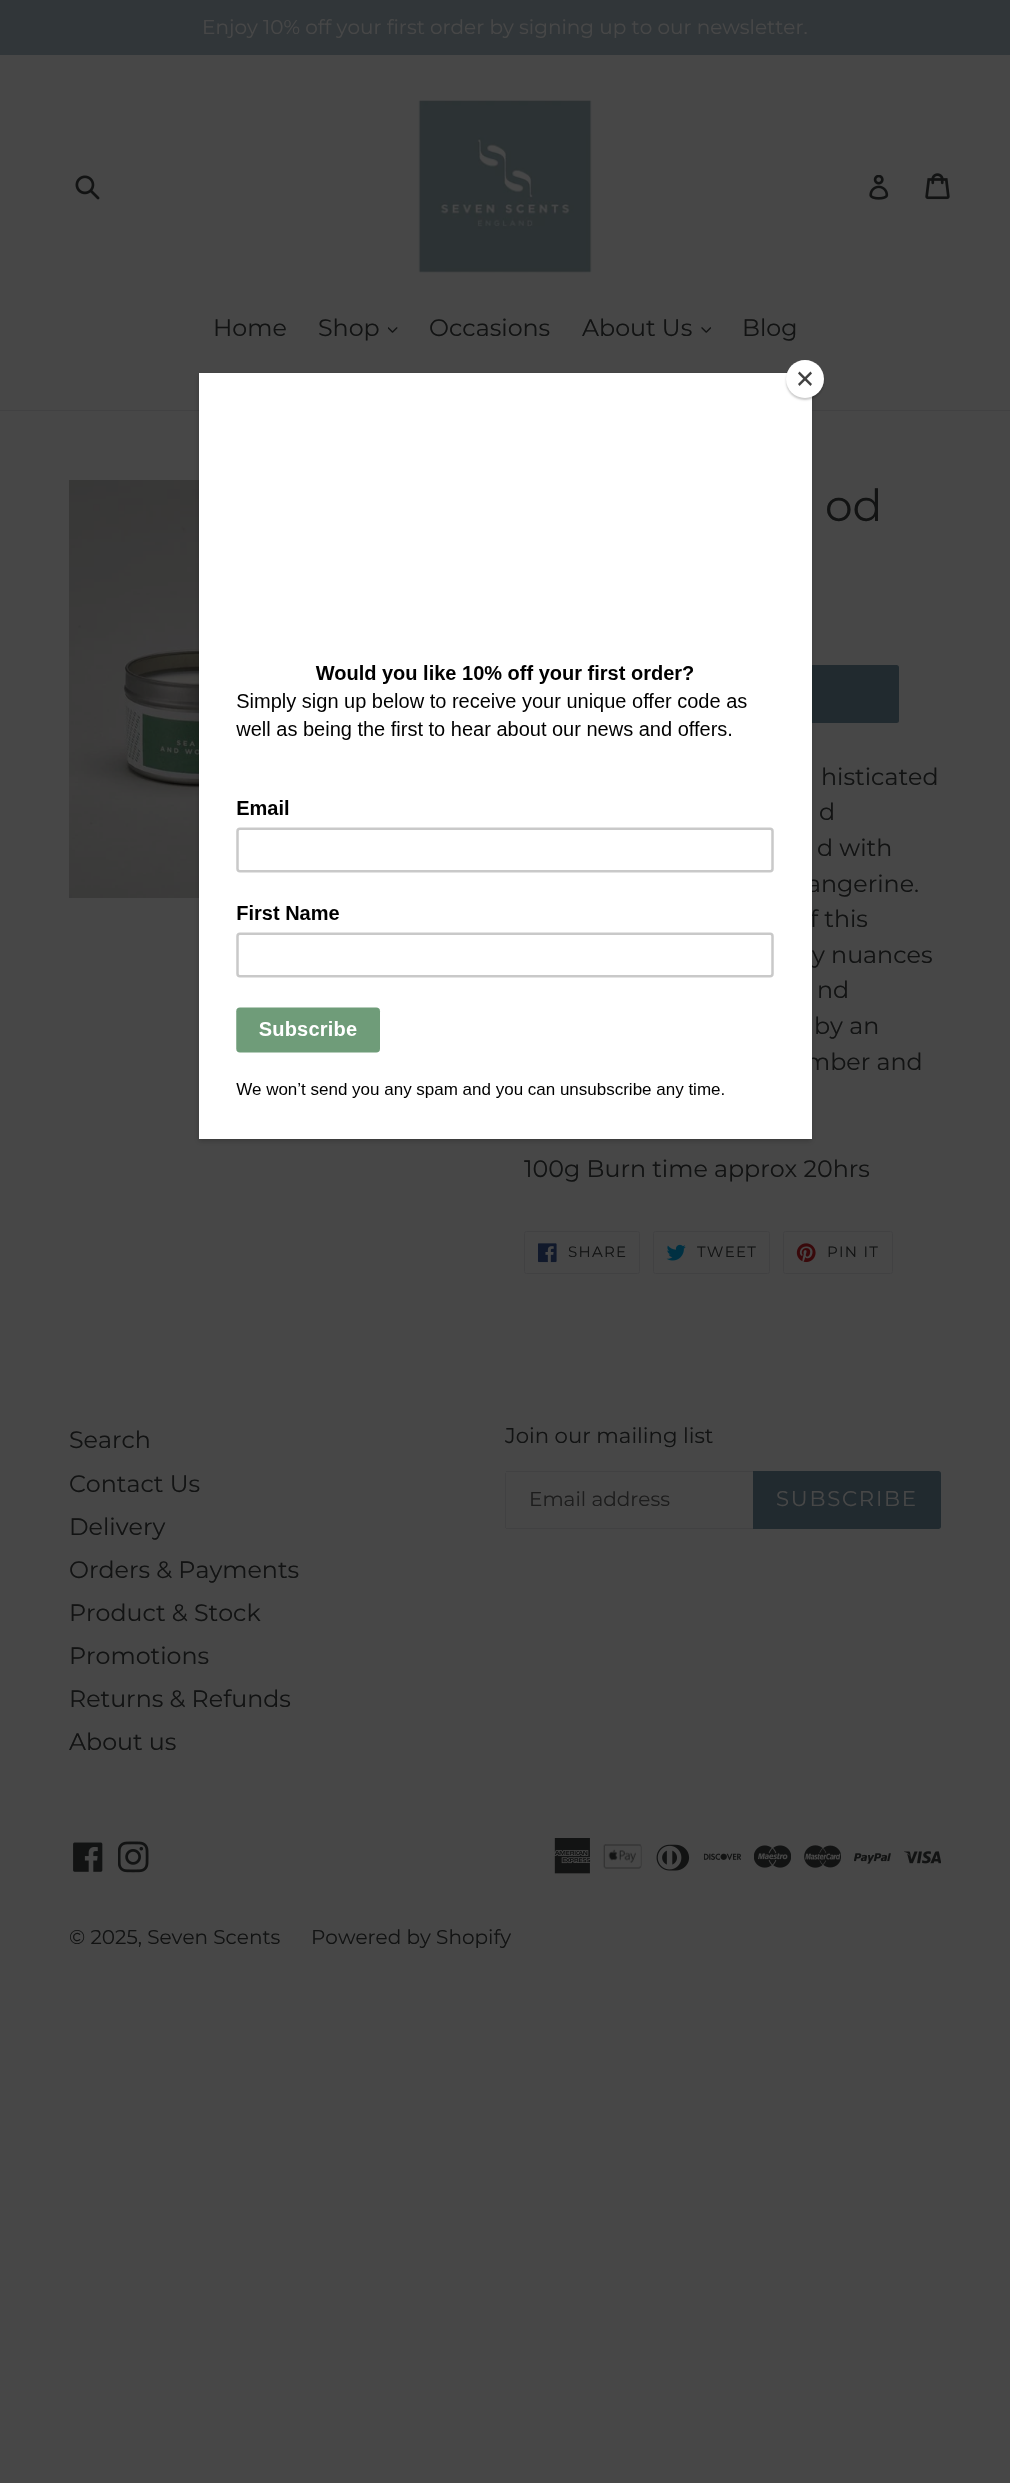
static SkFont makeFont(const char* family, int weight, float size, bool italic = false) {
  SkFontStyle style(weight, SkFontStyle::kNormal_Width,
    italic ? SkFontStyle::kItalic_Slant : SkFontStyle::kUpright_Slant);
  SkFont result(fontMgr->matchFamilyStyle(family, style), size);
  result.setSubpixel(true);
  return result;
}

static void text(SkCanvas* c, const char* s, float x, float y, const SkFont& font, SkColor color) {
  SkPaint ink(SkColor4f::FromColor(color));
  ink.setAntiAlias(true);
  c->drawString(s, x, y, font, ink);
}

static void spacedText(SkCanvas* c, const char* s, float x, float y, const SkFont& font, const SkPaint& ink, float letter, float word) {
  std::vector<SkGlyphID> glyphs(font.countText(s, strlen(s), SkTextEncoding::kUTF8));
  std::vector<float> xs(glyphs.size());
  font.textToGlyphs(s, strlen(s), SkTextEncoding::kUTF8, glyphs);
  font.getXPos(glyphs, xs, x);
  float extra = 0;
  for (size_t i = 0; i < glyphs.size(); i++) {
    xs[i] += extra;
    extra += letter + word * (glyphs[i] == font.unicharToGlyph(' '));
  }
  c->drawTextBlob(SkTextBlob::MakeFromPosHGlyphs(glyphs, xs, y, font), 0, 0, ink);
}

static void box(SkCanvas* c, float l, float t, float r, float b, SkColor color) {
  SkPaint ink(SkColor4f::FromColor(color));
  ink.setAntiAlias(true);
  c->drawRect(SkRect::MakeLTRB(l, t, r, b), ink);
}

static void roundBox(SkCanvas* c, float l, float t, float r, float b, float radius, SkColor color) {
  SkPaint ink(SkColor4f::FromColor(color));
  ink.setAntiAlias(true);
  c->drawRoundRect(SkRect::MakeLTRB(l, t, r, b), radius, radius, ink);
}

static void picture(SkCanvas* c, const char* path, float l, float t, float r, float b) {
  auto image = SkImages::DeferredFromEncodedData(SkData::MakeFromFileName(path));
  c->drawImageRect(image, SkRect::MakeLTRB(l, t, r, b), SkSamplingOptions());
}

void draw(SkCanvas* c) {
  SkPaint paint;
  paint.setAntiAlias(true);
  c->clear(0xff474747);
  box(c, 0, 0, 1010, 55, 0xff313639);
  SkFont face1 = makeFont("Montserrat", 100, 20);
  text(c, "Enjoy 10% off your first order by signing up to our newsletter.", 202, 34, face1, 0xff474747);
  picture(c, "img_01.png", 75, 175, 100, 200);
  picture(c, "img_02.png", 418, 100, 592, 273);
  picture(c, "img_03.png", 869, 175, 889, 200);
  picture(c, "img_04.png", 925, 173, 950, 200);
  box(c, 0, 410, 1010, 411, 0xff414142);
  SkFont face2 = makeFont("Montserrat", 100, 23.75f);
  text(c, "Home", 213, 336, face2, 0xff121313);
  text(c, "Shop", 318, 336, face2, 0xff121313);
  picture(c, "img_05.png", 388, 327, 398, 333);
  text(c, "Occasions", 429, 336, face2, 0xff121313);
  text(c, "About Us", 582, 336, face2, 0xff121313);
  picture(c, "img_06.png", 701, 327, 711, 333);
  text(c, "Blog", 742, 336, face2, 0xff121313);
  picture(c, "img_08.png", 69, 480, 199, 898);
  roundBox(c, 524, 665, 899, 723, 2.5f, 0xff212a2f);
  paint.setColor(0x33000000);
  paint.setMaskFilter(SkMaskFilter::MakeBlur(kNormal_SkBlurStyle, 2.5f));
  c->drawRect(SkRect::MakeLTRB(199, 375, 811, 1141), paint);
  paint.setMaskFilter(nullptr);
  text(c, "angerine.", 807, 892, face2, 0xff121313);
  text(c, "f this", 810, 927, face2, 0xff121313);
  text(c, "y nuances", 812, 963, face2, 0xff121313);
  text(c, "mber and", 805, 1070, face2, 0xff121313);
  picture(c, "img_07.png", 199, 373, 812, 1139);
  paint.setMaskFilter(SkMaskFilter::MakeBlur(kNormal_SkBlurStyle, 1));
  c->drawRoundRect(SkRect::MakeLTRB(786, 363, 824, 400), 18.5f, 18.5f, paint);
  paint.setMaskFilter(nullptr);
  paint.setColor(0xffffffff);
  c->drawCircle(805, 379, 19, paint);
  paint.setColor(0xff414141);
  c->drawPath(SkPathBuilder().moveTo(810.5f, 371.5f).lineTo(812, 373.5f).lineTo(799.5f, 386).lineTo(798, 384).close().detach(), paint);
  c->drawPath(SkPathBuilder().moveTo(798, 373.5f).lineTo(799.5f, 371.5f).lineTo(812, 384).lineTo(810.5f, 386).close().detach(), paint);
  SkFont face3 = makeFont("Montserrat", 100, 44);
  text(c, "od", 825, 521, face3, 0xff121313);
  text(c, "histicated", 821, 785, face2, 0xff121313);
  text(c, "d", 819, 820, face2, 0xff121313);
  text(c, "d with", 817, 856, face2, 0xff121313);
  text(c, "nd", 817, 998, face2, 0xff121313);
  text(c, "by an", 814, 1034, face2, 0xff121313);
  text(c, "100g Burn time approx 20hrs", 524, 1177, face2, 0xff121313);
  paint.setStyle(SkPaint::kStroke_Style);
  paint.setStrokeWidth(1);
  paint.setColor(0xff414142);
  c->drawRoundRect(SkRect::MakeLTRB(524.5f, 1231.5f, 639.5f, 1273.5f), 2, 2, paint);
  picture(c, "img_09.png", 538, 1243, 557, 1263);
  SkFont face4 = makeFont("Montserrat", 100, 15);
  paint.setStyle(SkPaint::kFill_Style);
  paint.setColor(0xff121313);
  spacedText(c, "SHARE", 568, 1257, face4, paint, 1.25f, 0);
  paint.setStyle(SkPaint::kStroke_Style);
  paint.setColor(0xff414142);
  c->drawRoundRect(SkRect::MakeLTRB(653.5f, 1231.5f, 769.5f, 1273.5f), 2, 2, paint);
  picture(c, "img_10.png", 666, 1244, 686, 1261);
  paint.setStyle(SkPaint::kFill_Style);
  paint.setColor(0xff121313);
  spacedText(c, "TWEET", 697, 1257, face4, paint, 1.25f, 0);
  paint.setStyle(SkPaint::kStroke_Style);
  paint.setColor(0xff414142);
  c->drawRoundRect(SkRect::MakeLTRB(783.5f, 1231.5f, 892.5f, 1273.5f), 2, 2, paint);
  picture(c, "img_11.png", 796, 1243, 816, 1263);
  paint.setStyle(SkPaint::kFill_Style);
  paint.setColor(0xff121313);
  spacedText(c, "PIN IT", 827, 1257, face4, paint, 1.25f, 0);
  text(c, "Search", 69, 1448, face2, 0xff121313);
  text(c, "Contact Us", 69, 1492, face2, 0xff121313);
  text(c, "Delivery", 69, 1535, face2, 0xff121313);
  text(c, "Orders & Payments", 69, 1578, face2, 0xff121313);
  text(c, "Product & Stock", 69, 1621, face2, 0xff121313);
  text(c, "Promotions", 69, 1664, face2, 0xff121313);
  text(c, "Returns & Refunds", 69, 1707, face2, 0xff121313);
  text(c, "About us", 69, 1750, face2, 0xff121313);
  SkFont face5 = makeFont("Montserrat", 100, 21.25f);
  text(c, "Join our mailing list", 505, 1443, face5, 0xff121313);
  box(c, 506, 1471, 753, 1472, 0xff414142);
  box(c, 506, 1528, 753, 1529, 0xff414142);
  box(c, 505, 1473, 506, 1528, 0xff414142);
  text(c, "Email address", 529, 1506, face1, 0xff1d1d1d);
  paint.setColor(0xff212a2f);
  c->drawPath(SkPathBuilder().moveTo(753, 1471).lineTo(938.5f, 1471).cubicTo(940, 1471, 941, 1472, 941, 1473.5f).lineTo(941, 1526.5f).cubicTo(941, 1528, 940, 1529, 938.5f, 1529).lineTo(753, 1529).close().detach(), paint);
  paint.setColor(0xff474747);
  spacedText(c, "SUBSCRIBE", 776, 1506, face5, paint, 1.75f, 0);
  picture(c, "img_12.png", 73, 1842, 103, 1872);
  picture(c, "img_13.png", 118, 1841, 149, 1873);
  picture(c, "img_14.png", 554, 1838, 591, 1874);
  picture(c, "img_15.png", 603, 1844, 642, 1869);
  picture(c, "img_16.png", 656, 1844, 690, 1871);
  picture(c, "img_17.png", 704, 1853, 741, 1860);
  picture(c, "img_18.png", 754, 1845, 791, 1868);
  picture(c, "img_19.png", 804, 1845, 841, 1868);
  picture(c, "img_20.png", 854, 1853, 891, 1864);
  picture(c, "img_21.png", 904, 1851, 941, 1864);
  text(c, "© 2025, Seven Scents", 69, 1944, face1, 0xff121313);
  text(c, "Powered by Shopify", 311, 1944, face1, 0xff121313);
}
